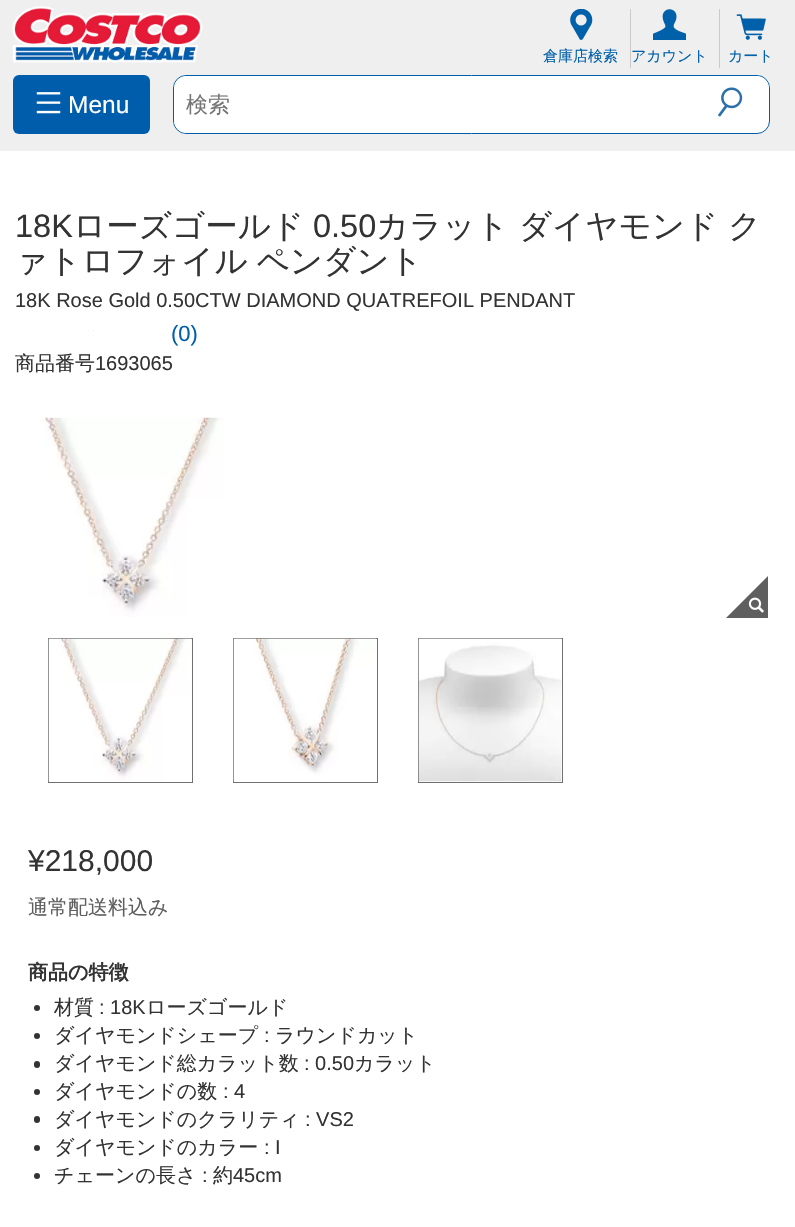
static SkFont makeFont(const char* family, int weight, float size, bool italic = false) {
  SkFontStyle style(weight, SkFontStyle::kNormal_Width,
    italic ? SkFontStyle::kItalic_Slant : SkFontStyle::kUpright_Slant);
  SkFont result(fontMgr->matchFamilyStyle(family, style), size);
  result.setSubpixel(true);
  return result;
}

static void text(SkCanvas* c, const char* s, float x, float y, const SkFont& font, SkColor color) {
  SkPaint ink(SkColor4f::FromColor(color));
  ink.setAntiAlias(true);
  c->drawString(s, x, y, font, ink);
}

static void spacedText(SkCanvas* c, const char* s, float x, float y, const SkFont& font, const SkPaint& ink, float letter, float word) {
  std::vector<SkGlyphID> glyphs(font.countText(s, strlen(s), SkTextEncoding::kUTF8));
  std::vector<float> xs(glyphs.size());
  font.textToGlyphs(s, strlen(s), SkTextEncoding::kUTF8, glyphs);
  font.getXPos(glyphs, xs, x);
  float extra = 0;
  for (size_t i = 0; i < glyphs.size(); i++) {
    xs[i] += extra;
    extra += letter + word * (glyphs[i] == font.unicharToGlyph(' '));
  }
  c->drawTextBlob(SkTextBlob::MakeFromPosHGlyphs(glyphs, xs, y, font), 0, 0, ink);
}

static void box(SkCanvas* c, float l, float t, float r, float b, SkColor color) {
  SkPaint ink(SkColor4f::FromColor(color));
  ink.setAntiAlias(true);
  c->drawRect(SkRect::MakeLTRB(l, t, r, b), ink);
}

static void roundBox(SkCanvas* c, float l, float t, float r, float b, float radius, SkColor color) {
  SkPaint ink(SkColor4f::FromColor(color));
  ink.setAntiAlias(true);
  c->drawRoundRect(SkRect::MakeLTRB(l, t, r, b), radius, radius, ink);
}

static void picture(SkCanvas* c, const char* path, float l, float t, float r, float b) {
  auto image = SkImages::DeferredFromEncodedData(SkData::MakeFromFileName(path));
  c->drawImageRect(image, SkRect::MakeLTRB(l, t, r, b), SkSamplingOptions());
}

void draw(SkCanvas* c) {
  SkPaint paint;
  paint.setAntiAlias(true);
  c->clear(0xffffffff);
  box(c, 0, 0, 795, 151, 0xffefefef);
  picture(c, "img_01.png", 12, 6, 203, 63);
  box(c, 630, 9, 631, 68, 0xffcacaca);
  picture(c, "img_02.png", 570, 9, 593, 40);
  SkFont face1 = makeFont("WenQuanYi Zen Hei", 500, 15);
  text(c, "倉庫店検索", 543, 61, face1, 0xff0060a9);
  box(c, 719, 9, 720, 68, 0xffcacaca);
  picture(c, "img_03.png", 653, 9, 686, 40);
  text(c, "アカウント", 631, 61, face1, 0xff0060a9);
  picture(c, "img_04.png", 736, 14, 766, 40);
  text(c, "カート", 728, 61, face1, 0xff0060a9);
  roundBox(c, 13, 75, 150, 134, 6, 0xff005dab);
  picture(c, "img_05.png", 36, 92, 61, 114);
  SkFont face2 = makeFont("Liberation Sans", 400, 24.5f);
  text(c, "Menu", 68, 113, face2, 0xffffffff);
  paint.setColor(0xffffffff);
  c->drawRoundRect(SkRect::MakeLTRB(173.5f, 75.5f, 769.5f, 133.5f), 12.5f, 12.5f, paint);
  paint.setStyle(SkPaint::kStroke_Style);
  paint.setStrokeWidth(1);
  paint.setColor(0xff005dab);
  c->drawRoundRect(SkRect::MakeLTRB(173.5f, 75.5f, 769.5f, 133.5f), 12.5f, 12.5f, paint);
  roundBox(c, 174, 76, 718, 133, 13, 0xffffffff);
  SkFont face3 = makeFont("WenQuanYi Zen Hei", 500, 22);
  text(c, "検索", 186, 112, face3, 0xff757575);
  roundBox(c, 718, 76, 769, 129, 13, 0xffffffff);
  picture(c, "img_06.png", 718, 87, 743, 117);
  SkFont face4 = makeFont("Liberation Sans", 400, 32.5f);
  text(c, "18K", 15, 237, face4, 0xff333333);
  SkFont face5 = makeFont("WenQuanYi Zen Hei", 500, 32.5f);
  text(c, "ローズゴールド", 73, 237, face5, 0xff333333);
  text(c, "0.50", 313, 237, face4, 0xff333333);
  text(c, "カラット ダイヤモンド ク", 376, 237, face5, 0xff333333);
  paint.setStyle(SkPaint::kFill_Style);
  paint.setColor(0xff333333);
  spacedText(c, "ァトロフォイル ペンダント", 15, 272, face5, paint, 0, -1);
  SkFont face6 = makeFont("Liberation Sans", 400, 20);
  text(c, "18K Rose Gold 0.50CTW DIAMOND QUATREFOIL PENDANT", 15, 307, face6, 0xff333333);
  picture(c, "img_07.png", 93, 330, 94, 332);
  SkFont face7 = makeFont("Liberation Sans", 400, 22);
  text(c, "(0)", 171, 341, face7, 0xff0060a9);
  SkFont face8 = makeFont("WenQuanYi Zen Hei", 500, 20);
  text(c, "商品番号", 15, 370, face8, 0xff333333);
  text(c, "1693065", 95, 370, face6, 0xff333333);
  picture(c, "img_08.png", 42, 417, 223, 617);
  paint.setColor(0xff5f5f5f);
  c->drawPath(SkPathBuilder().moveTo(768, 618).lineTo(726, 618).lineTo(768, 576).close().detach(), paint);
  picture(c, "img_09.png", 748, 597, 764, 613);
  paint.setStyle(SkPaint::kStroke_Style);
  paint.setColor(0xff707070);
  c->drawRect(SkRect::MakeLTRB(48.5f, 638.5f, 192.5f, 782.5f), paint);
  picture(c, "img_10.png", 48, 638, 192, 782);
  c->drawRect(SkRect::MakeLTRB(233.5f, 638.5f, 377.5f, 782.5f), paint);
  picture(c, "img_11.png", 233, 638, 377, 782);
  c->drawRect(SkRect::MakeLTRB(418.5f, 638.5f, 562.5f, 782.5f), paint);
  picture(c, "img_12.png", 418, 638, 562, 782);
  SkFont face9 = makeFont("Liberation Sans", 400, 30);
  text(c, "¥218,000", 28, 871, face9, 0xff333333);
  text(c, "通常配送料込み", 28, 914, face8, 0xff5f5f5f);
  SkFont face10 = makeFont("WenQuanYi Zen Hei", 700, 20);
  text(c, "商品の特徴", 28, 979, face10, 0xff333333);
  paint.setStyle(SkPaint::kFill_Style);
  paint.setColor(0xff333333);
  c->drawCircle(37, 1008, 3, paint);
  text(c, "材質", 54, 1014, face8, 0xff333333);
  text(c, ": 18K", 99, 1014, face6, 0xff333333);
  text(c, "ローズゴールド", 146, 1014, face8, 0xff333333);
  c->drawCircle(37, 1036, 3, paint);
  text(c, "ダイヤモンドシェープ", 54, 1042, face8, 0xff333333);
  text(c, ":", 264, 1042, face6, 0xff333333);
  text(c, "ラウンドカット", 275, 1042, face8, 0xff333333);
  roundBox(c, 34, 1061, 40, 1068, 3, 0xff333333);
  text(c, "ダイヤモンド総カラット数", 54, 1070, face8, 0xff333333);
  text(c, ": 0.50", 304, 1070, face6, 0xff333333);
  text(c, "カラット", 354, 1070, face8, 0xff333333);
  c->drawCircle(37, 1092, 3, paint);
  text(c, "ダイヤモンドの数", 54, 1098, face8, 0xff333333);
  text(c, ": 4", 223, 1098, face6, 0xff333333);
  roundBox(c, 34, 1116, 40, 1123, 3, 0xff333333);
  text(c, "ダイヤモンドのクラリティ", 54, 1126, face8, 0xff333333);
  text(c, ": VS2", 305, 1126, face6, 0xff333333);
  c->drawCircle(37, 1148, 3, paint);
  text(c, "ダイヤモンドのカラー", 54, 1154, face8, 0xff333333);
  text(c, ": I", 264, 1154, face6, 0xff333333);
  c->drawCircle(37, 1176, 3, paint);
  text(c, "チェーンの長さ", 54, 1182, face8, 0xff333333);
  text(c, ":", 202, 1182, face6, 0xff333333);
  text(c, "約", 213, 1182, face8, 0xff333333);
  text(c, "45cm", 233, 1182, face6, 0xff333333);
}
